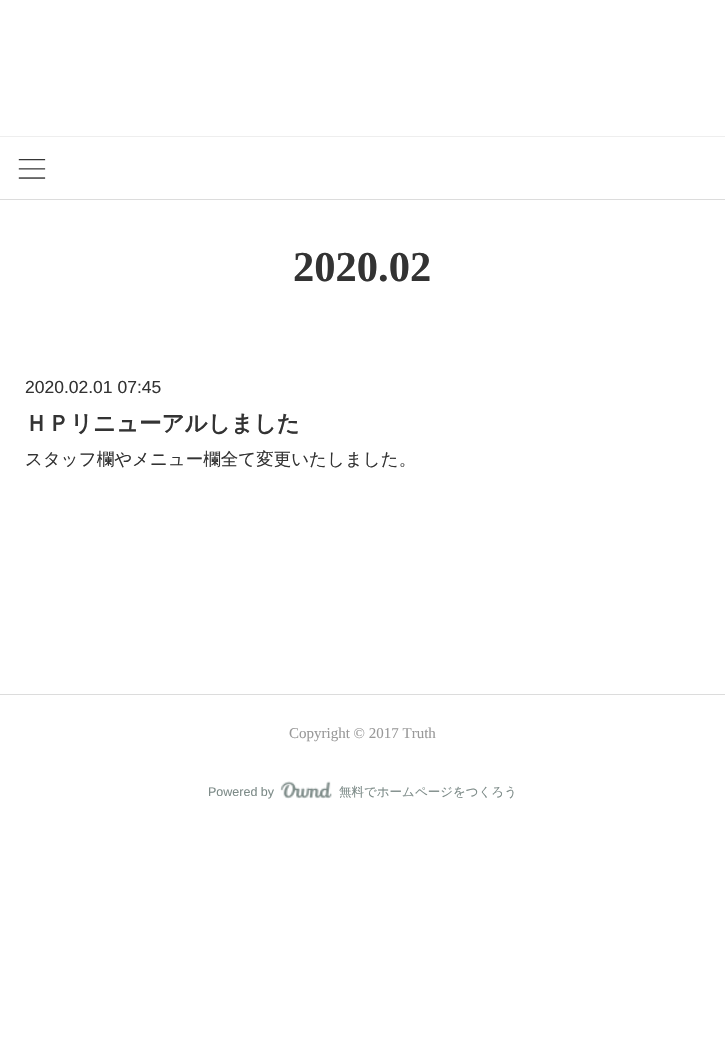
static SkFont makeFont(const char* family, int weight, float size, bool italic = false) {
  SkFontStyle style(weight, SkFontStyle::kNormal_Width,
    italic ? SkFontStyle::kItalic_Slant : SkFontStyle::kUpright_Slant);
  SkFont result(fontMgr->matchFamilyStyle(family, style), size);
  result.setSubpixel(true);
  return result;
}

static void text(SkCanvas* c, const char* s, float x, float y, const SkFont& font, SkColor color) {
  SkPaint ink(SkColor4f::FromColor(color));
  ink.setAntiAlias(true);
  c->drawString(s, x, y, font, ink);
}

static void box(SkCanvas* c, float l, float t, float r, float b, SkColor color) {
  SkPaint ink(SkColor4f::FromColor(color));
  ink.setAntiAlias(true);
  c->drawRect(SkRect::MakeLTRB(l, t, r, b), ink);
}

static void picture(SkCanvas* c, const char* path, float l, float t, float r, float b) {
  auto image = SkImages::DeferredFromEncodedData(SkData::MakeFromFileName(path));
  c->drawImageRect(image, SkRect::MakeLTRB(l, t, r, b), SkSamplingOptions());
}

void draw(SkCanvas* c) {
  SkPaint paint;
  paint.setAntiAlias(true);
  c->clear(0xffffffff);
  box(c, 0, 199, 725, 200, 0xffdcdcdc);
  picture(c, "img_01.png", 18, 159, 46, 179);
  box(c, 0, 136, 725, 137, 0xffeeeeee);
  SkFont face1 = makeFont("Liberation Serif", 700, 42.5f);
  text(c, "2020.02", 293, 281, face1, 0xff333333);
  SkFont face2 = makeFont("Liberation Sans", 400, 17.5f);
  text(c, "2020.02.01 07:45", 25, 393, face2, 0xff333333);
  SkFont face3 = makeFont("WenQuanYi Zen Hei", 700, 22.5f);
  text(c, "ＨＰリニューアルしました", 25, 431, face3, 0xff333333);
  SkFont face4 = makeFont("WenQuanYi Zen Hei", 500, 17.5f);
  text(c, "スタッフ欄やメニュー欄全て変更いたしました。", 25, 465, face4, 0xff333333);
  box(c, 0, 694, 725, 695, 0xffdcdcdc);
  SkFont face5 = makeFont("Liberation Serif", 400, 15);
  text(c, "Copyright © 2017 Truth", 289, 738, face5, 0xff999999);
  SkFont face6 = makeFont("Liberation Sans", 400, 12.5f);
  text(c, "Powered by", 208, 796, face6, 0xff7d8b88);
  picture(c, "img_02.png", 280, 781, 332, 799);
  SkFont face7 = makeFont("WenQuanYi Zen Hei", 500, 12.5f);
  text(c, "無料でホームページをつくろう", 339, 796, face7, 0xff7d8b88);
}
